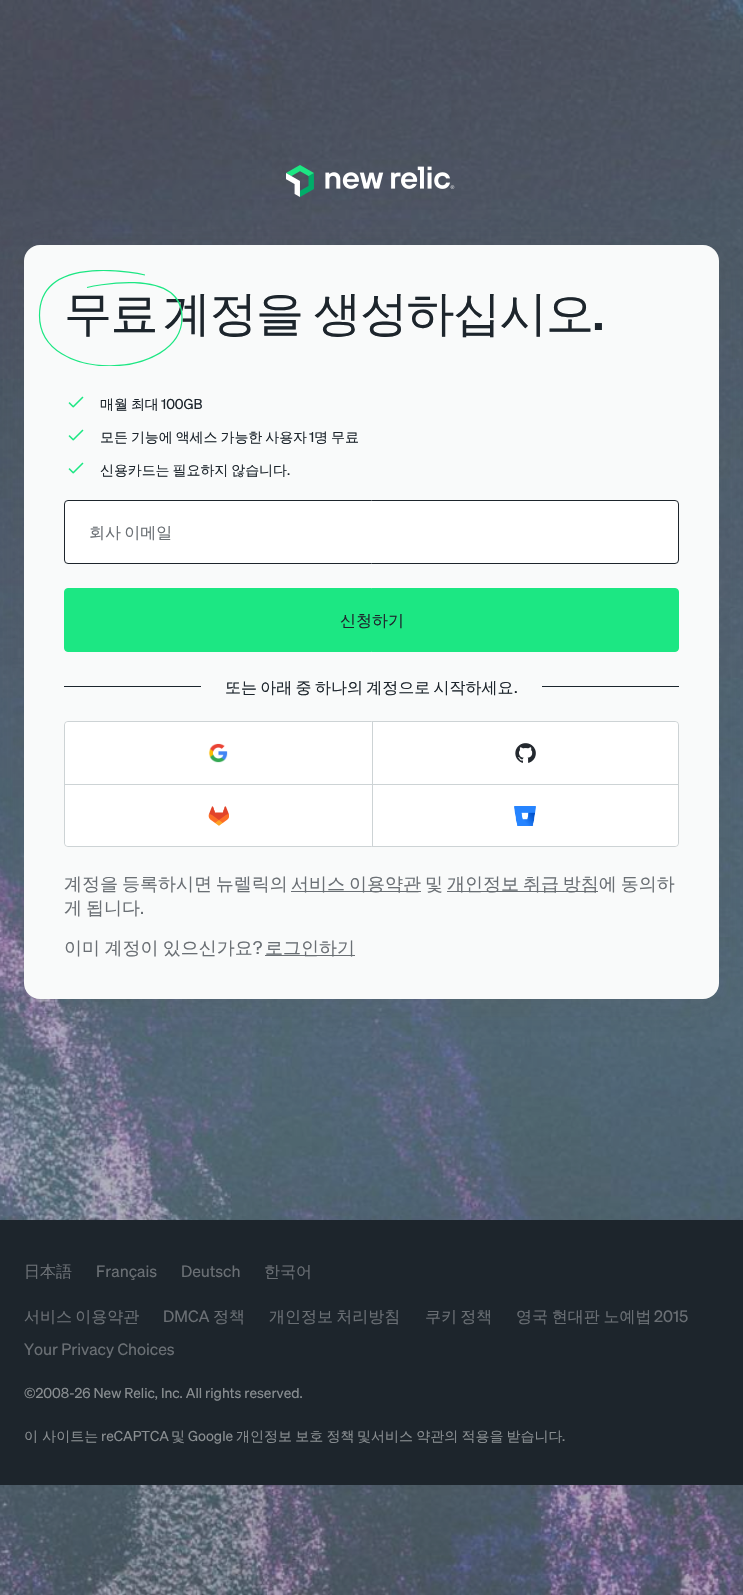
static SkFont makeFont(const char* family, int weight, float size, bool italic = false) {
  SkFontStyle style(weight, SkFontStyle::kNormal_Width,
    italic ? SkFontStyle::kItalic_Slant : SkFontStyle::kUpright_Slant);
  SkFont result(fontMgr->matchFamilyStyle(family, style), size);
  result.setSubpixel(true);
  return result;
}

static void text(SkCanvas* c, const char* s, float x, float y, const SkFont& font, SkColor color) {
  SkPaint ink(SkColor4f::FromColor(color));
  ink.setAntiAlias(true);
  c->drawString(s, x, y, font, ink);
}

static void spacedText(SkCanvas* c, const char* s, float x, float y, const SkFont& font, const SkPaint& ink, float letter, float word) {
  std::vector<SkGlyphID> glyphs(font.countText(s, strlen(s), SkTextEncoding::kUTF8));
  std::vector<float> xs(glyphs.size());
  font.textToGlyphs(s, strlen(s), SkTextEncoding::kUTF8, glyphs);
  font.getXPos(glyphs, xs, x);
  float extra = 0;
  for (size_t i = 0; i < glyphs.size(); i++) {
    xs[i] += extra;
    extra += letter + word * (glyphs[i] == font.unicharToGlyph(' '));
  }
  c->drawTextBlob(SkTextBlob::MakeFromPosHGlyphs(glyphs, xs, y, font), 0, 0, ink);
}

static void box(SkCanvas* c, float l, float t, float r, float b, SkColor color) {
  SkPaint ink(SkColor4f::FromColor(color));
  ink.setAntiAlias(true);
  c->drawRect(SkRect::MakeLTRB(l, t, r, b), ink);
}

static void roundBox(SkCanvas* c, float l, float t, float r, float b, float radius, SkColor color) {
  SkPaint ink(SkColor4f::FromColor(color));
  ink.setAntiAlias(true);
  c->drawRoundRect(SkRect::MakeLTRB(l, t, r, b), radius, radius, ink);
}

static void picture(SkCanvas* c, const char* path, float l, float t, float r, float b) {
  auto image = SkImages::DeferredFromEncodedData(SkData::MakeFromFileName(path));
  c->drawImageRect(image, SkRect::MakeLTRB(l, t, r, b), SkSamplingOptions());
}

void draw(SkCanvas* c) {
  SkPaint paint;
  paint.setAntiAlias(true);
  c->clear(0xffffffff);
  picture(c, "img_01.png", 0, 0, 743, 1595);
  picture(c, "img_02.png", 286, 165, 455, 197);
  paint.setColor(0x2954565a);
  paint.setMaskFilter(SkMaskFilter::MakeBlur(kNormal_SkBlurStyle, 16));
  c->drawRoundRect(SkRect::MakeLTRB(24, 249, 719, 1003), 16, 16, paint);
  paint.setMaskFilter(nullptr);
  roundBox(c, 24, 245, 719, 999, 16, 0xfff9fafa);
  SkFont face1 = makeFont("WenQuanYi Zen Hei", 500, 48);
  paint.setColor(0xff1d252c);
  spacedText(c, "무료", 64, 330, face1, paint, -1.5f, 0);
  spacedText(c, "계정을 생성하십시오", 163, 330, face1, paint, -1.5f, -2);
  c->save();
  c->clipRect(SkRect::MakeLTRB(38, 270, 183, 366));
  paint.setStyle(SkPaint::kStroke_Style);
  paint.setStrokeWidth(1.2f);
  paint.setColor(0xff1ce783);
  c->drawPath(SkPathBuilder().moveTo(87, 287.5f).cubicTo(87, 287.5f, 182, 264.5f, 182, 317.5f).cubicTo(182, 379.5f, 39.5f, 385, 39.5f, 315.5f).cubicTo(39.5f, 250.5f, 145, 275, 145, 275).detach(), paint);
  c->restore();
  SkFont face2 = makeFont("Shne", 500, 48);
  paint.setStyle(SkPaint::kFill_Style);
  paint.setColor(0xff1d252c);
  spacedText(c, ".", 593, 330, face2, paint, -1.5f, 0);
  picture(c, "img_03.png", 68, 396, 84, 408);
  SkFont face3 = makeFont("WenQuanYi Zen Hei", 500, 14);
  spacedText(c, "매월 최대", 100, 409, face3, paint, -0.1f, -1);
  SkFont face4 = makeFont("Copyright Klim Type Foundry", 400, 14);
  spacedText(c, "100GB", 161, 409, face4, paint, -0.1f, 0);
  picture(c, "img_03.png", 68, 429, 84, 441);
  spacedText(c, "모든 기능에 액세스 가능한 사용자", 100, 442, face3, paint, -0.1f, -1);
  spacedText(c, "1", 309, 442, face4, paint, -0.1f, 0);
  spacedText(c, "명 무료", 314, 442, face3, paint, -0.1f, -1);
  picture(c, "img_03.png", 68, 462, 84, 474);
  spacedText(c, "신용카드는 필요하지 않습니다", 100, 475, face3, paint, -0.1f, -1);
  spacedText(c, ".", 287, 475, face4, paint, -0.1f, 0);
  paint.setColor(0xffffffff);
  c->drawRoundRect(SkRect::MakeLTRB(64.5f, 500.5f, 678.5f, 563.5f), 3.5f, 3.5f, paint);
  paint.setStyle(SkPaint::kStroke_Style);
  paint.setStrokeWidth(1);
  paint.setColor(0xff1d252c);
  c->drawRoundRect(SkRect::MakeLTRB(64.5f, 500.5f, 678.5f, 563.5f), 3.5f, 3.5f, paint);
  SkFont face5 = makeFont("WenQuanYi Zen Hei", 500, 16);
  paint.setStyle(SkPaint::kFill_Style);
  paint.setColor(0xff6a6f74);
  spacedText(c, "회사 이메일", 89, 538, face5, paint, 0, -1.5f);
  paint.setColor(0xff1ce783);
  c->drawRoundRect(SkRect::MakeLTRB(64.5f, 588.5f, 678.5f, 651.5f), 3.5f, 3.5f, paint);
  paint.setStyle(SkPaint::kStroke_Style);
  c->drawRoundRect(SkRect::MakeLTRB(64.5f, 588.5f, 678.5f, 651.5f), 3.5f, 3.5f, paint);
  text(c, "신청하기", 340, 626, face5, 0xff1d252c);
  box(c, 64, 686, 201, 687, 0xff1b252d);
  paint.setStyle(SkPaint::kFill_Style);
  paint.setColor(0xff1d252c);
  spacedText(c, "또는 아래 중 하나의 계정으로 시작하세요", 225, 693, face5, paint, 0, -1.5f);
  box(c, 542, 686, 679, 687, 0xff1b252d);
  SkFont face6 = makeFont("Copyright Klim Type Foundry", 400, 16);
  text(c, ".", 514, 693, face6, 0xff1d252c);
  paint.setStyle(SkPaint::kStroke_Style);
  paint.setColor(0xffcdd3d5);
  c->drawRoundRect(SkRect::MakeLTRB(64.5f, 721.5f, 678.5f, 846.5f), 3.5f, 3.5f, paint);
  paint.setStyle(SkPaint::kFill_Style);
  paint.setColor(0xffffffff);
  c->drawPath(SkPathBuilder().moveTo(68, 722).lineTo(372, 722).lineTo(372, 784).lineTo(65, 784).lineTo(65, 725).cubicTo(65, 723.5f, 66.5f, 722, 68, 722).close().detach(), paint);
  picture(c, "img_04.png", 208, 743, 228, 763);
  c->drawPath(SkPathBuilder().moveTo(372, 722).lineTo(675, 722).cubicTo(676.5f, 722, 678, 723.5f, 678, 725).lineTo(678, 784).lineTo(372, 784).close().detach(), paint);
  box(c, 372, 722, 373, 784, 0xffcdd3d5);
  picture(c, "img_05.png", 515, 743, 536, 763);
  c->drawPath(SkPathBuilder().moveTo(65, 784).lineTo(372, 784).lineTo(372, 846).lineTo(68, 846).cubicTo(66.5f, 846, 65, 844.5f, 65, 843).close().detach(), paint);
  box(c, 65, 784, 372, 785, 0xffcdd3d5);
  picture(c, "img_06.png", 208, 806, 229, 826);
  c->drawPath(SkPathBuilder().moveTo(372, 784).lineTo(678, 784).lineTo(678, 843).cubicTo(678, 844.5f, 676.5f, 846, 675, 846).lineTo(372, 846).close().detach(), paint);
  box(c, 372, 784, 678, 785, 0xffcdd3d5);
  box(c, 372, 784, 373, 846, 0xffcdd3d5);
  picture(c, "img_07.png", 514, 806, 536, 826);
  SkFont face7 = makeFont("WenQuanYi Zen Hei", 500, 18);
  paint.setColor(0xff6a6f74);
  spacedText(c, "계정을 등록하시면 뉴렐릭의", 64, 890, face7, paint, 0, -1.5f);
  box(c, 291, 891, 421, 892, 0xff6a6f74);
  spacedText(c, "서비스 이용약관", 291, 890, face7, paint, 0, -1.5f);
  text(c, "및", 425, 890, face7, 0xff6a6f74);
  box(c, 447, 891, 598, 892, 0xff6a6f74);
  spacedText(c, "개인정보 취급 방침에 동의하", 447, 890, face7, paint, 0, -1.5f);
  spacedText(c, "게 됩니다", 64, 914, face7, paint, 0, -1.5f);
  SkFont face8 = makeFont("Copyright Klim Type Foundry", 400, 18);
  text(c, ".", 140, 914, face8, 0xff6a6f74);
  spacedText(c, "이미 계정이 있으신가요", 64, 954, face7, paint, 0, -1);
  text(c, "?", 253, 954, face8, 0xff6a6f74);
  box(c, 265, 955, 355, 956, 0xff6a6f74);
  text(c, "로그인하기", 265, 954, face7, 0xff6a6f74);
  box(c, 0, 1220, 743, 1485, 0xff1d252c);
  text(c, "日本語", 24, 1277, face5, 0xff6a6f74);
  text(c, "Français", 96, 1277, face6, 0xff6a6f74);
  text(c, "Deutsch", 181, 1277, face6, 0xff6a6f74);
  text(c, "한국어", 264, 1277, face5, 0xff6a6f74);
  spacedText(c, "서비스 이용약관", 24, 1322, face5, paint, 0, -1.5f);
  text(c, "DMCA", 163, 1322, face6, 0xff6a6f74);
  text(c, "정책", 213, 1322, face5, 0xff6a6f74);
  spacedText(c, "개인정보 처리방침", 269, 1322, face5, paint, 0, -1.5f);
  spacedText(c, "쿠키 정책", 425, 1322, face5, paint, 0, -1.5f);
  spacedText(c, "영국 현대판 노예법", 516, 1322, face5, paint, 0, -1);
  text(c, "2015", 654, 1322, face6, 0xff6a6f74);
  text(c, "Your Privacy Choices", 24, 1355, face6, 0xff6a6f74);
  text(c, "©2008-26 New Relic, Inc. All rights reserved.", 24, 1398, face4, 0xff898e91);
  text(c, "이 사이트는", 24, 1441, face3, 0xff898e91);
  text(c, "reCAPTCA", 101, 1441, face4, 0xff898e91);
  text(c, "및", 171, 1441, face3, 0xff898e91);
  text(c, "Google", 188, 1441, face4, 0xff898e91);
  paint.setColor(0xff898e91);
  spacedText(c, "개인정보 보호 정책", 236, 1441, face3, paint, 0, -1);
  text(c, "및", 357, 1441, face3, 0xff898e91);
  spacedText(c, "서비스 약관의 적용을 받습니다", 371, 1441, face3, paint, 0, -1);
  text(c, ".", 562, 1441, face4, 0xff898e91);
}
